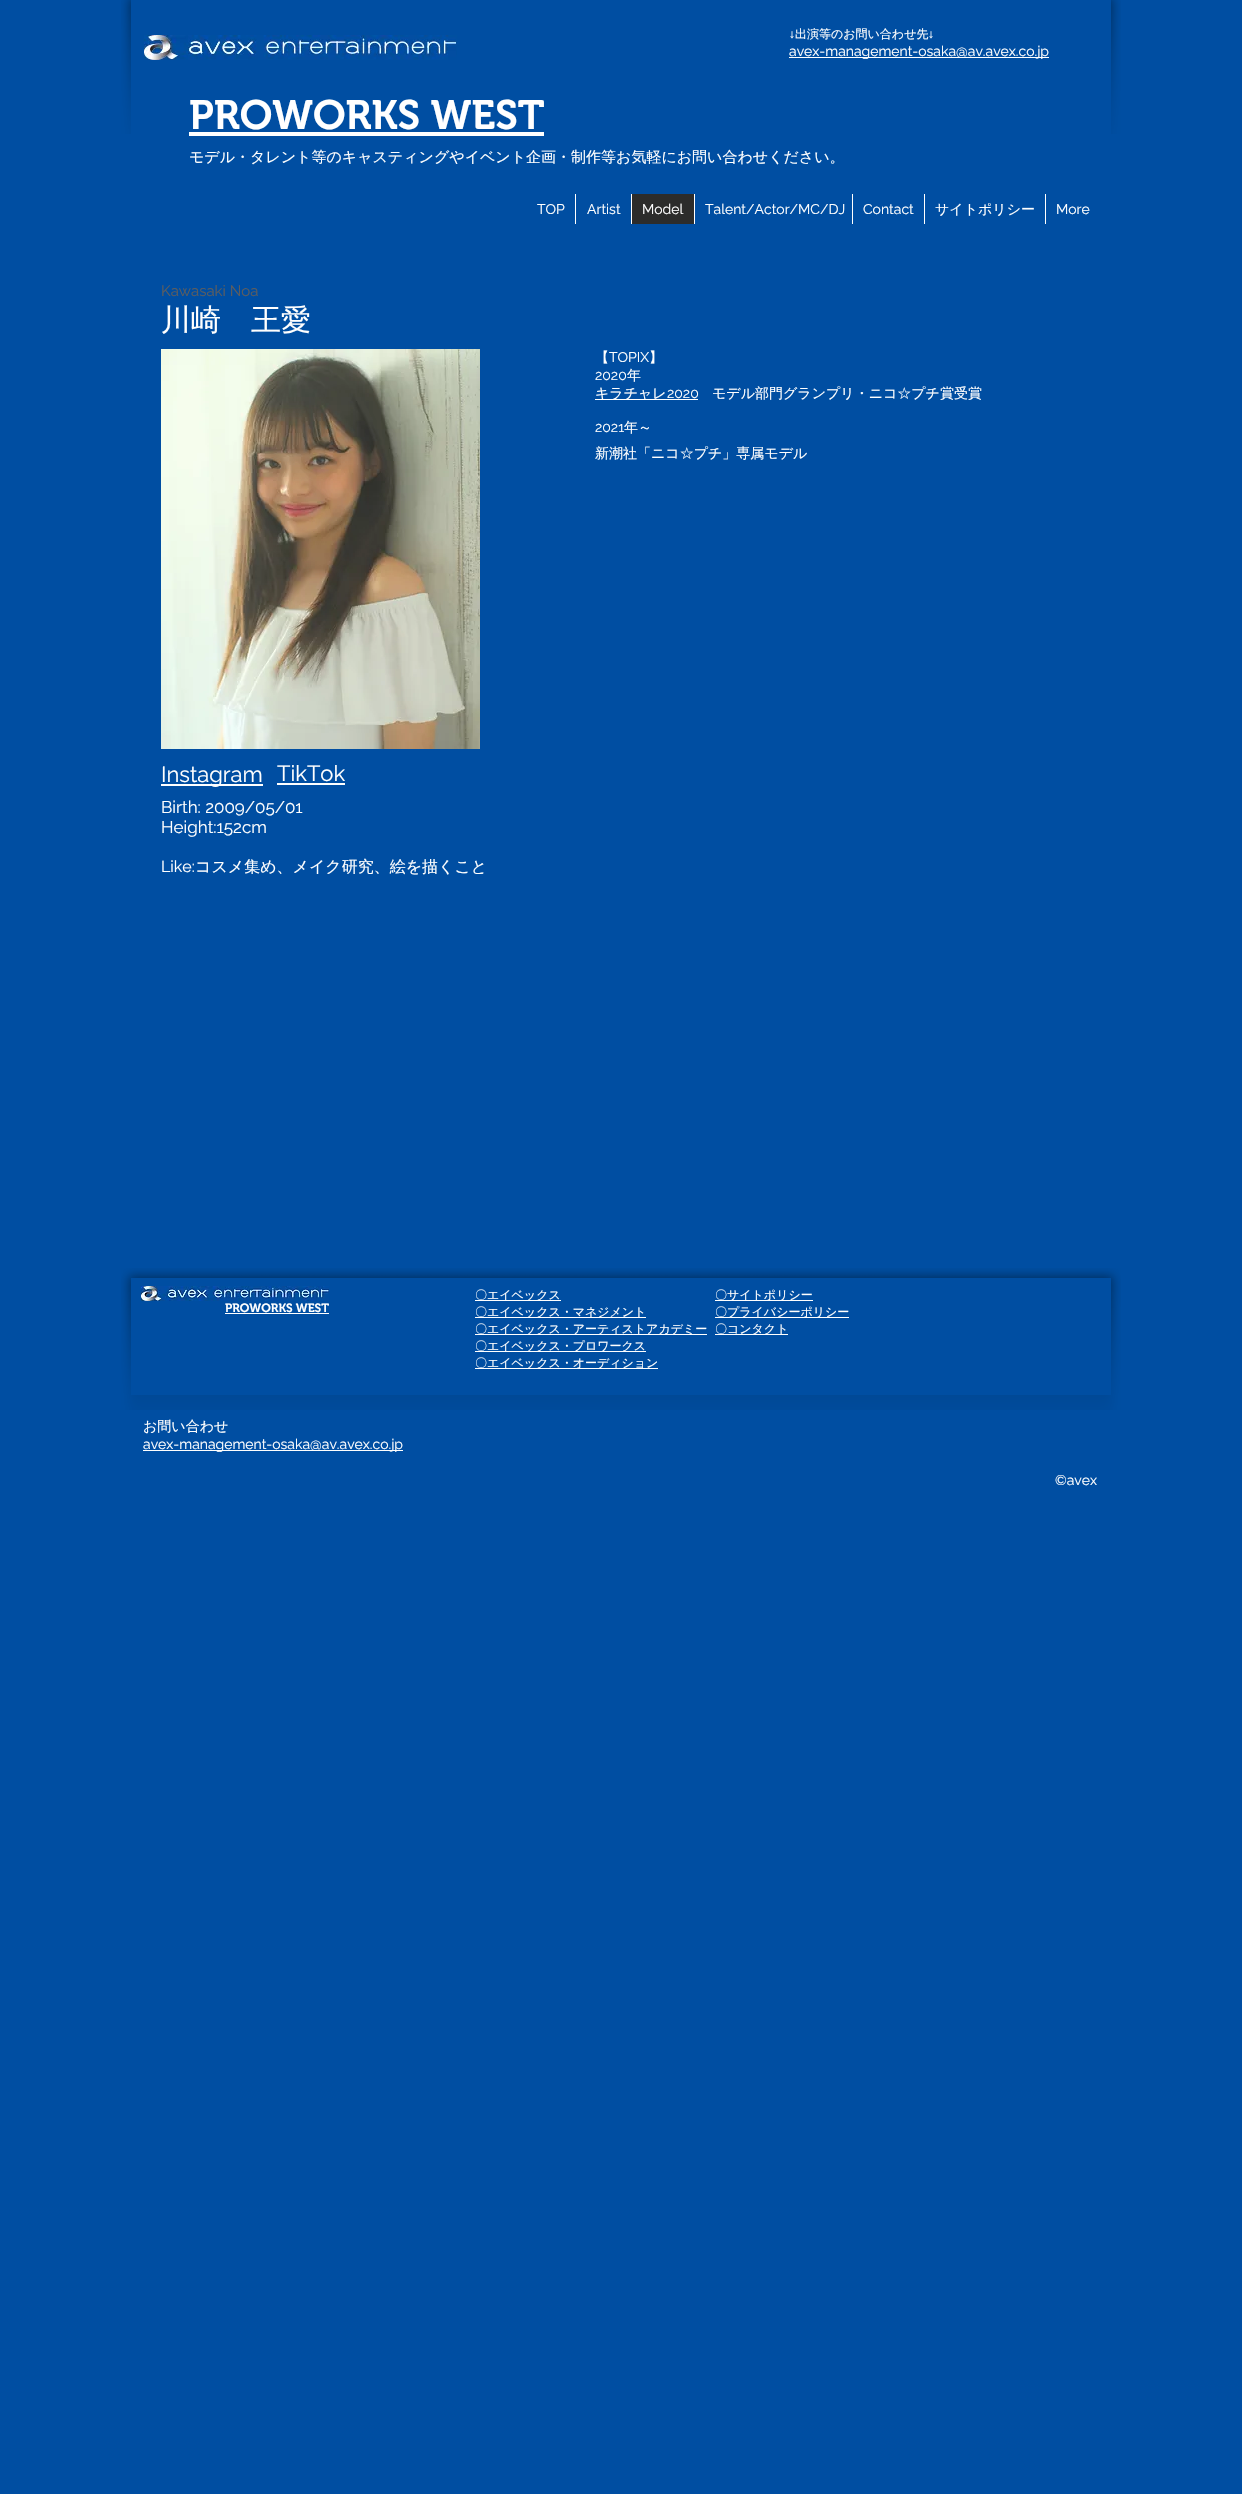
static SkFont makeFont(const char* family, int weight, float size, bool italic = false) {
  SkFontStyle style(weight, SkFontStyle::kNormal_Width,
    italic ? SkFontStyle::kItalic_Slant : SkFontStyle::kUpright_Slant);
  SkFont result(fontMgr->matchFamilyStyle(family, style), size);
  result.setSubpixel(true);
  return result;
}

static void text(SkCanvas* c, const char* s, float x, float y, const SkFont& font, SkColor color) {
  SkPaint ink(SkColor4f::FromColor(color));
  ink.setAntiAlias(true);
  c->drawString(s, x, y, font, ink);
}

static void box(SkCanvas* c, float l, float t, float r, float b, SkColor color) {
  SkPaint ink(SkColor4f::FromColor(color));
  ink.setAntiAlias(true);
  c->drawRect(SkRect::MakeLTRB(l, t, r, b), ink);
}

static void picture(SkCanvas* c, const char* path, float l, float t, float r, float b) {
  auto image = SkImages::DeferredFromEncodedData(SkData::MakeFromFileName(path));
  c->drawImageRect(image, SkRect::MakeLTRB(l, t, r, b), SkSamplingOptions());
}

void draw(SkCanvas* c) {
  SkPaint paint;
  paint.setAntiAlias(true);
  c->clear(0xff004ea2);
  picture(c, "img_01.png", 121, 0, 131, 134);
  picture(c, "img_02.png", 1111, 0, 1121, 134);
  picture(c, "img_03.png", 144, 35, 457, 60);
  SkFont face1 = makeFont("Liberation Sans", 400, 12);
  text(c, "↓", 789, 38, face1, 0xffffffff);
  SkFont face2 = makeFont("WenQuanYi Zen Hei", 500, 12);
  text(c, "出演等のお問い合わせ先", 795, 38, face2, 0xffffffff);
  text(c, "↓", 928, 38, face1, 0xffffffff);
  box(c, 789, 57, 1049, 58, 0xffffffff);
  SkFont face3 = makeFont("Raleway", 400, 14);
  text(c, "avex-management-osaka@av.avex.co.jp", 789, 56, face3, 0xffffffff);
  SkFont face4 = makeFont("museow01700", 600, 41);
  text(c, "PROWORKS WEST", 189, 129, face4, 0xffffffff);
  box(c, 189, 132, 544, 136, 0xffffffff);
  SkFont face5 = makeFont("WenQuanYi Zen Hei", 500, 15);
  text(c, "モデル・タレント等のキャスティングやイベント企画・制作等お気軽にお問い合わせください。", 189, 162, face5, 0xffffffff);
  text(c, "TOP", 537, 214, face3, 0xffffffff);
  box(c, 575, 194, 576, 224, 0xffffffff);
  text(c, "Artist", 587, 214, face3, 0xffffffff);
  box(c, 632, 194, 694, 224, 0xff2c2c2b);
  box(c, 631, 194, 632, 224, 0xffffffff);
  text(c, "Model", 642, 214, face3, 0xffffffff);
  box(c, 694, 194, 695, 224, 0xffffffff);
  text(c, "Talent/Actor/MC/DJ", 705, 214, face3, 0xffffffff);
  box(c, 852, 194, 853, 224, 0xffffffff);
  text(c, "Contact", 863, 214, face3, 0xffffffff);
  box(c, 924, 194, 925, 224, 0xffffffff);
  SkFont face6 = makeFont("WenQuanYi Zen Hei", 500, 14);
  text(c, "サイトポリシー", 935, 214, face6, 0xffffffff);
  box(c, 1045, 194, 1046, 224, 0xffffffff);
  text(c, "More", 1056, 214, face3, 0xffffffff);
  SkFont face7 = makeFont("Raleway", 400, 15);
  text(c, "Kawasaki Noa", 161, 296, face7, 0xff5e5d5d);
  SkFont face8 = makeFont("WenQuanYi Zen Hei", 500, 30);
  text(c, "川崎　王愛", 161, 330, face8, 0xffffffff);
  picture(c, "img_04.png", 161, 349, 480, 749);
  text(c, "【", 595, 362, face6, 0xffffffff);
  text(c, "TOPIX", 609, 362, face3, 0xffffffff);
  text(c, "】", 649, 362, face6, 0xffffffff);
  text(c, "2020", 595, 380, face3, 0xffffffff);
  text(c, "年", 627, 380, face6, 0xffffffff);
  box(c, 595, 399, 698, 400, 0xffffffff);
  text(c, "キラチャレ", 595, 398, face6, 0xffffffff);
  text(c, "2020", 667, 398, face3, 0xffffffff);
  text(c, "モデル部門グランプリ・ニコ☆プチ賞受賞", 712, 398, face6, 0xffffffff);
  text(c, "2021", 595, 432, face3, 0xffffffff);
  text(c, "年～", 624, 432, face6, 0xffffffff);
  text(c, "新潮社「ニコ☆プチ」専属モデル", 595, 458, face6, 0xffffffff);
  box(c, 161, 784, 263, 786, 0xffffffff);
  SkFont face9 = makeFont("Raleway", 400, 22);
  text(c, "Instagram", 161, 782, face9, 0xffffffff);
  text(c, "TikTok", 277, 781, face9, 0xffffffff);
  box(c, 277, 783, 345, 785, 0xffffffff);
  SkFont face10 = makeFont("Raleway", 400, 17);
  text(c, "Birth: 2009/05/01", 161, 813, face10, 0xffffffff);
  text(c, "Height:152cm", 161, 833, face10, 0xffffffff);
  SkFont face11 = makeFont("Raleway", 400, 16);
  text(c, "Like:", 161, 872, face11, 0xffffffff);
  SkFont face12 = makeFont("WenQuanYi Zen Hei", 500, 16);
  text(c, "コスメ集め、メイク研究、絵を描くこと", 195, 872, face12, 0xffffffff);
  picture(c, "img_05.png", 121, 1268, 166, 1410);
  picture(c, "img_06.png", 166, 1268, 1076, 1410);
  picture(c, "img_07.png", 1076, 1268, 1121, 1410);
  box(c, 131, 1278, 1111, 1395, 0xff004ea2);
  picture(c, "img_08.png", 141, 1286, 329, 1301);
  box(c, 475, 1300, 561, 1301, 0xffffffff);
  text(c, "〇エイベックス", 475, 1299, face2, 0xffffffff);
  box(c, 475, 1317, 646, 1318, 0xffffffff);
  text(c, "〇エイベックス・マネジメント", 475, 1316, face2, 0xffffffff);
  box(c, 475, 1334, 707, 1335, 0xffffffff);
  text(c, "〇エイベックス・アーティストアカデミー", 475, 1333, face2, 0xffffffff);
  box(c, 475, 1351, 646, 1352, 0xffffffff);
  text(c, "〇エイベックス・プロワークス", 475, 1350, face2, 0xffffffff);
  box(c, 475, 1368, 658, 1369, 0xffffffff);
  text(c, "〇エイベックス・オーディション", 475, 1367, face2, 0xffffffff);
  box(c, 715, 1300, 813, 1301, 0xffffffff);
  text(c, "〇サイトポリシー", 715, 1299, face2, 0xffffffff);
  box(c, 715, 1317, 849, 1318, 0xffffffff);
  text(c, "〇プライバシーポリシー", 715, 1316, face2, 0xffffffff);
  box(c, 715, 1334, 788, 1335, 0xffffffff);
  text(c, "〇コンタクト", 715, 1333, face2, 0xffffffff);
  SkFont face13 = makeFont("museow01700", 600, 12);
  text(c, "PROWORKS WEST", 225, 1312, face13, 0xffffffff);
  box(c, 225, 1313, 329, 1314, 0xffffffff);
  text(c, "お問い合わせ", 143, 1431, face6, 0xffffffff);
  box(c, 143, 1450, 403, 1451, 0xffffffff);
  text(c, "avex-management-osaka@av.avex.co.jp", 143, 1449, face3, 0xffffffff);
  text(c, "©avex", 1055, 1485, face3, 0xffffffff);
}
